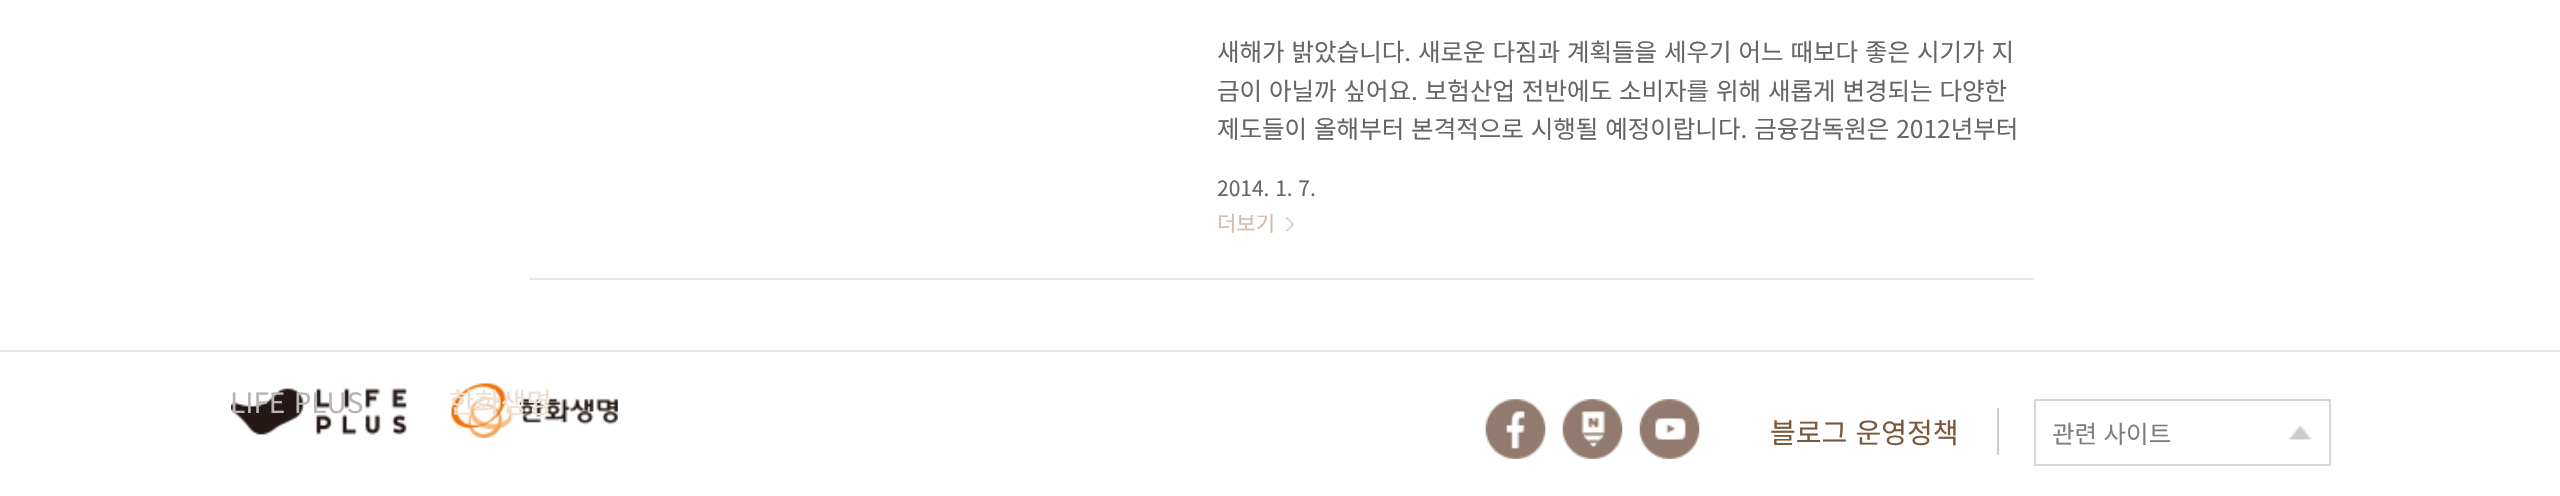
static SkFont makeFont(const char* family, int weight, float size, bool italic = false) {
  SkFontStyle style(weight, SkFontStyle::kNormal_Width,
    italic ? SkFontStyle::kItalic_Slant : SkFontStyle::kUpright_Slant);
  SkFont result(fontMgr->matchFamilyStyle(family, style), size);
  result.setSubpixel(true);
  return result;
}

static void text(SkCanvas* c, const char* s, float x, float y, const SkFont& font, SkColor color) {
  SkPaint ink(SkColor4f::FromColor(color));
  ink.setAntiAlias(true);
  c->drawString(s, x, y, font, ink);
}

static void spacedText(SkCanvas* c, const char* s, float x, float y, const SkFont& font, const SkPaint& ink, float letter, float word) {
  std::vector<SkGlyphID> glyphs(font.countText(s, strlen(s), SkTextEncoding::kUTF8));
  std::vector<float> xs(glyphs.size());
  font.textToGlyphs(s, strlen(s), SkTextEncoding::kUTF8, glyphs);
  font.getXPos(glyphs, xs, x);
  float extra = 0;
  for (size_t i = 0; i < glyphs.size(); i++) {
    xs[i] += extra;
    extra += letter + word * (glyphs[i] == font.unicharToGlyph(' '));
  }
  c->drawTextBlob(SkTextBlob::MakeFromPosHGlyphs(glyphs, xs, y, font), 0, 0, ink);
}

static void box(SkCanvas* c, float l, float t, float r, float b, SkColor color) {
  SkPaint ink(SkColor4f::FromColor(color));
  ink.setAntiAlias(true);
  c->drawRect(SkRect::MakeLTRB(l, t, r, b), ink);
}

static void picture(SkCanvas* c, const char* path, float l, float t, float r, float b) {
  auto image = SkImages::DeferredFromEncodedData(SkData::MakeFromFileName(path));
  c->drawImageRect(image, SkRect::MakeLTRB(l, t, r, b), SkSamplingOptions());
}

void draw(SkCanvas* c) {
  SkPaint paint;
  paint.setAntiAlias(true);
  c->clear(0xffffffff);
  box(c, 529, 278, 2034, 280, 0xffe6e6e6);
  SkFont face1 = makeFont("Noto Sans KR", 400, 24.5f);
  paint.setColor(0xff666666);
  spacedText(c, "새해가 밝았습니다. 새로운 다짐과 계획들을 세우기 어느 때보다 좋은 시기가 지", 1217, 61, face1, paint, 0, 1.4f);
  spacedText(c, "금이 아닐까 싶어요. 보험산업 전반에도 소비자를 위해 새롭게 변경되는 다양한", 1217, 100, face1, paint, 0, 1.4f);
  spacedText(c, "제도들이 올해부터 본격적으로 시행될 예정이랍니다. 금융감독원은 2012년부터", 1217, 138, face1, paint, 0, 1.4f);
  SkFont face2 = makeFont("Noto Sans KR", 400, 21);
  spacedText(c, "2014. 1. 7.", 1217, 196, face2, paint, 0, 1);
  text(c, "더보기", 1217, 231, face2, 0xffd4bca7);
  picture(c, "img_01.png", 1286, 217, 1294, 232);
  box(c, 0, 350, 2560, 352, 0xffe6e6e6);
  picture(c, "img_02.png", 231, 383, 618, 438);
  SkFont face3 = makeFont("Noto Sans KR", 400, 28);
  paint.setColor(0xffb9b5b4);
  spacedText(c, "LIFE PLUS", 230, 413, face3, paint, 0, 2);
  text(c, "한화생명", 449, 413, face3, 0xffeddfd4);
  picture(c, "img_03.png", 1485, 399, 1546, 459);
  picture(c, "img_04.png", 1562, 399, 1623, 459);
  picture(c, "img_05.png", 1639, 399, 1700, 459);
  paint.setColor(0xff7a583a);
  spacedText(c, "블로그 운영정책", 1770, 443, face3, paint, 0, 2);
  box(c, 1997, 408, 1999, 455, 0xffcccccc);
  paint.setStyle(SkPaint::kStroke_Style);
  paint.setStrokeWidth(2);
  paint.setColor(0xffd6d6d6);
  c->drawRect(SkRect::MakeLTRB(2035, 400, 2330, 465), paint);
  picture(c, "img_06.png", 2289, 425, 2312, 440);
  paint.setStyle(SkPaint::kFill_Style);
  paint.setColor(0xff7f7f7f);
  spacedText(c, "관련 사이트", 2052, 443, face1, paint, 0, 1);
}
